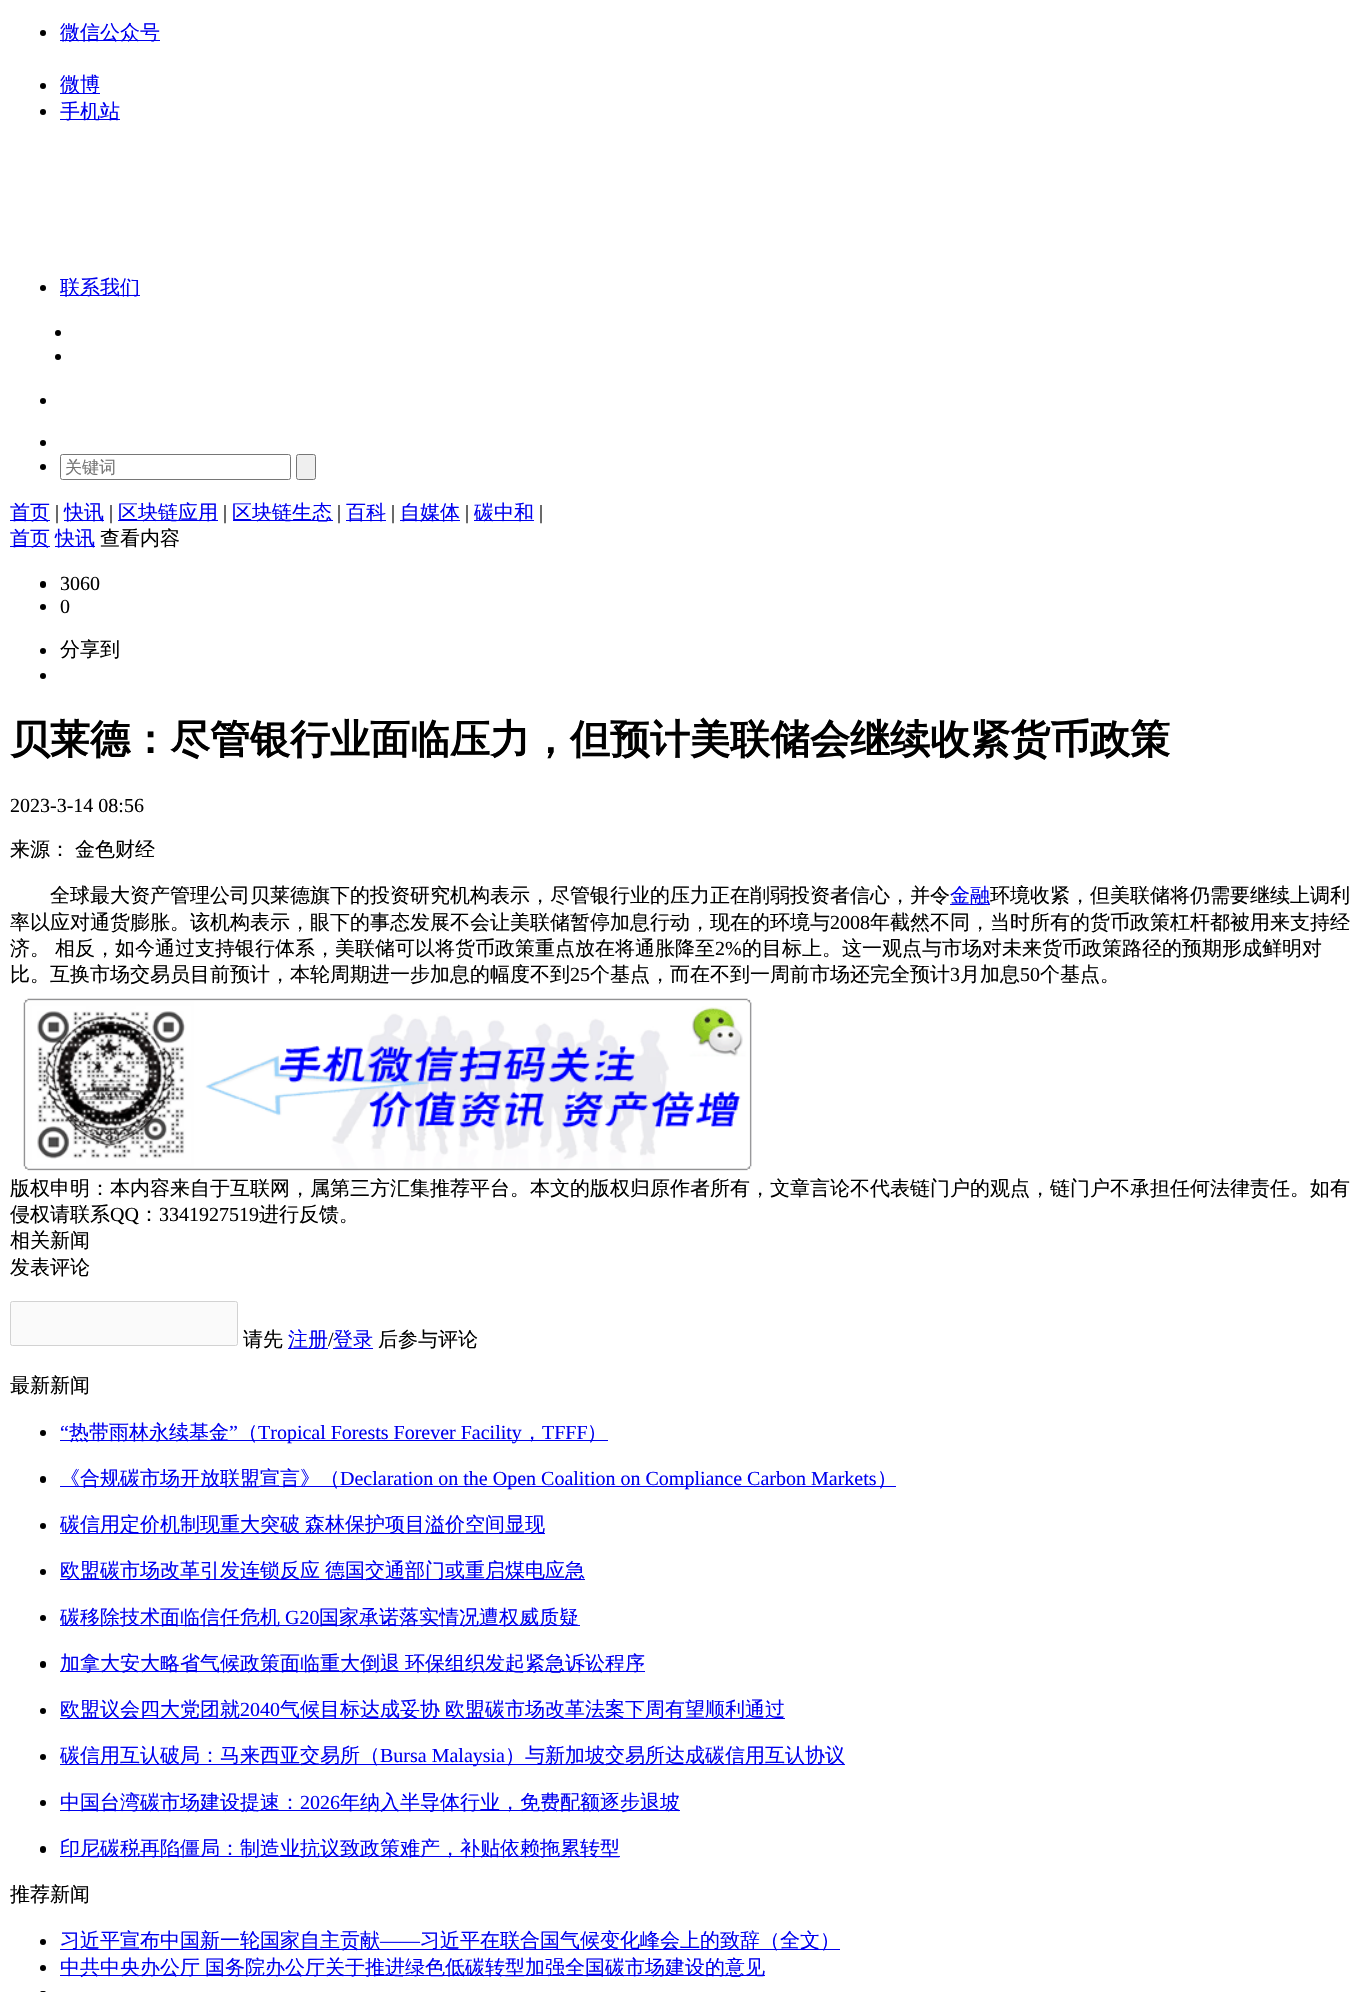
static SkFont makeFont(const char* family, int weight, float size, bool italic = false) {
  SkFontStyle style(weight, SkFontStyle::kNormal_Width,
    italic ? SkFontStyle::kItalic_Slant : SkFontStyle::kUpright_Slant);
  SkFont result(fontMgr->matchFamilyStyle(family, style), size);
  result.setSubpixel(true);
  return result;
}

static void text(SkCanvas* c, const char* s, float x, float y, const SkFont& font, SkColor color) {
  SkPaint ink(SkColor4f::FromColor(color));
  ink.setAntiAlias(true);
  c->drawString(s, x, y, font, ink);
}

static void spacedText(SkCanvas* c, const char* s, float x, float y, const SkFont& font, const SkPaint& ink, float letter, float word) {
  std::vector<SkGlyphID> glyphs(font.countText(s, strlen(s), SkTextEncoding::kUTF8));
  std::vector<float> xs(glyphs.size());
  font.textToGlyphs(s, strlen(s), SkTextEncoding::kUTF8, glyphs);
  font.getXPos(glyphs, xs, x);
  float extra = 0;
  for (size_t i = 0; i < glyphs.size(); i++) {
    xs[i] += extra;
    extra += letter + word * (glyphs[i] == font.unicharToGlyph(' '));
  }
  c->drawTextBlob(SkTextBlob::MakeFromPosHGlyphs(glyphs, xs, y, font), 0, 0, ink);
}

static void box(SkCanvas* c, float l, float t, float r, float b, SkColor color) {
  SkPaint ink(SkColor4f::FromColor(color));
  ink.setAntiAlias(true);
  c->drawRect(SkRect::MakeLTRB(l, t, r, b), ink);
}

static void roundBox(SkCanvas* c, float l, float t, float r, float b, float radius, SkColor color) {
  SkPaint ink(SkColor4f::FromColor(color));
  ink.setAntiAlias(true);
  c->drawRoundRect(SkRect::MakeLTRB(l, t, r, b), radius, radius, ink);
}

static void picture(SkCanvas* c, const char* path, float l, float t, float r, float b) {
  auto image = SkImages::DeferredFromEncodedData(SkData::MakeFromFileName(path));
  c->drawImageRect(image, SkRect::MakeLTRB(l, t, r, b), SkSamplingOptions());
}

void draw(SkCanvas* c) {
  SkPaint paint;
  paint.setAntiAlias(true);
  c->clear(0xffffffff);
  paint.setColor(0xff000000);
  c->drawCircle(43, 33, 3, paint);
  box(c, 60, 40, 160, 41, 0xff0000ee);
  SkFont face1 = makeFont("WenQuanYi Zen Hei", 500, 20);
  text(c, "微信公众号", 60, 39, face1, 0xff0000ee);
  c->drawCircle(43, 86, 3, paint);
  box(c, 60, 93, 100, 94, 0xff0000ee);
  text(c, "微博", 60, 91, face1, 0xff0000ee);
  c->drawCircle(43, 112, 3, paint);
  box(c, 60, 119, 120, 120, 0xff0000ee);
  text(c, "手机站", 60, 118, face1, 0xff0000ee);
  c->drawCircle(43, 288, 3, paint);
  box(c, 60, 295, 140, 296, 0xff0000ee);
  text(c, "联系我们", 60, 294, face1, 0xff0000ee);
  c->drawCircle(58, 333, 3, paint);
  c->drawCircle(58, 357, 3, paint);
  c->drawCircle(43, 401, 3, paint);
  c->drawCircle(43, 443, 3, paint);
  c->drawCircle(43, 467, 3, paint);
  paint.setStyle(SkPaint::kStroke_Style);
  paint.setStrokeWidth(1);
  paint.setColor(0xff767676);
  c->drawRoundRect(SkRect::MakeLTRB(60.5f, 454.5f, 290.5f, 479.5f), 2, 2, paint);
  SkFont face2 = makeFont("WenQuanYi Zen Hei", 500, 17);
  text(c, "关键词", 65, 473, face2, 0xff757575);
  paint.setStyle(SkPaint::kFill_Style);
  paint.setColor(0xffefefef);
  c->drawRoundRect(SkRect::MakeLTRB(296.5f, 454.5f, 315.5f, 479.5f), 2, 2, paint);
  paint.setStyle(SkPaint::kStroke_Style);
  paint.setColor(0xff767676);
  c->drawRoundRect(SkRect::MakeLTRB(296.5f, 454.5f, 315.5f, 479.5f), 2, 2, paint);
  box(c, 10, 520, 50, 521, 0xff0000ee);
  text(c, "首页", 10, 519, face1, 0xff0000ee);
  SkFont face3 = makeFont("Liberation Serif", 400, 20);
  text(c, "|", 55, 519, face3, 0xff000000);
  box(c, 64, 520, 104, 521, 0xff0000ee);
  text(c, "快讯", 64, 519, face1, 0xff0000ee);
  text(c, "|", 109, 519, face3, 0xff000000);
  box(c, 118, 520, 218, 521, 0xff0000ee);
  text(c, "区块链应用", 118, 519, face1, 0xff0000ee);
  text(c, "|", 223, 519, face3, 0xff000000);
  box(c, 233, 520, 333, 521, 0xff0000ee);
  text(c, "区块链生态", 232, 519, face1, 0xff0000ee);
  text(c, "|", 337, 519, face3, 0xff000000);
  box(c, 346, 520, 386, 521, 0xff0000ee);
  text(c, "百科", 346, 519, face1, 0xff0000ee);
  text(c, "|", 391, 519, face3, 0xff000000);
  box(c, 400, 520, 460, 521, 0xff0000ee);
  text(c, "自媒体", 400, 519, face1, 0xff0000ee);
  text(c, "|", 465, 519, face3, 0xff000000);
  box(c, 474, 520, 534, 521, 0xff0000ee);
  text(c, "碳中和", 474, 519, face1, 0xff0000ee);
  text(c, "|", 539, 519, face3, 0xff000000);
  box(c, 10, 546, 50, 547, 0xff0000ee);
  text(c, "首页", 10, 545, face1, 0xff0000ee);
  box(c, 55, 546, 95, 547, 0xff0000ee);
  text(c, "快讯", 55, 545, face1, 0xff0000ee);
  text(c, "查看内容", 100, 545, face1, 0xff000000);
  roundBox(c, 40, 581, 46, 588, 3, 0xff000000);
  text(c, "3060", 60, 590, face3, 0xff000000);
  paint.setStyle(SkPaint::kFill_Style);
  paint.setColor(0xff000000);
  c->drawCircle(43, 607, 3, paint);
  text(c, "0", 60, 613, face3, 0xff000000);
  c->drawCircle(43, 651, 3, paint);
  text(c, "分享到", 60, 656, face1, 0xff000000);
  c->drawCircle(43, 676, 3, paint);
  SkFont face4 = makeFont("WenQuanYi Zen Hei", 700, 40);
  text(c, "贝莱德：尽管银行业面临压力，但预计美联储会继续收紧货币政策", 10, 753, face4, 0xff000000);
  text(c, "2023-3-14 08:56", 10, 812, face3, 0xff000000);
  text(c, "来源：", 10, 856, face1, 0xff000000);
  text(c, "金色财经", 75, 856, face1, 0xff000000);
  text(c, "全球最大资产管理公司贝莱德旗下的投资研究机构表示，尽管银行业的压力正在削弱投资者信心，并令", 50, 902, face1, 0xff000000);
  box(c, 950, 904, 990, 905, 0xff0000ee);
  text(c, "金融", 950, 902, face1, 0xff0000ee);
  text(c, "环境收紧，但美联储将仍需要继续上调利", 990, 902, face1, 0xff000000);
  text(c, "率以应对通货膨胀。该机构表示，眼下的事态发展不会让美联储暂停加息行动，现在的环境与", 10, 929, face1, 0xff000000);
  text(c, "2008", 830, 929, face3, 0xff000000);
  text(c, "年截然不同，当时所有的货币政策杠杆都被用来支持经", 870, 929, face1, 0xff000000);
  spacedText(c, "济。 相反，如今通过支持银行体系，美联储可以将货币政策重点放在将通胀降至", 10, 955, face1, paint, 0, -1);
  text(c, "2%", 715, 955, face3, 0xff000000);
  text(c, "的目标上。这一观点与市场对未来货币政策路径的预期形成鲜明对", 742, 955, face1, 0xff000000);
  text(c, "比。互换市场交易员目前预计，本轮周期进一步加息的幅度不到", 10, 981, face1, 0xff000000);
  text(c, "25", 570, 981, face3, 0xff000000);
  text(c, "个基点，而在不到一周前市场还完全预计", 590, 981, face1, 0xff000000);
  text(c, "3", 950, 981, face3, 0xff000000);
  text(c, "月加息", 960, 981, face1, 0xff000000);
  text(c, "50", 1020, 981, face3, 0xff000000);
  text(c, "个基点。", 1040, 981, face1, 0xff000000);
  picture(c, "img_01.png", 23, 998, 752, 1171);
  text(c, "版权申明：本内容来自于互联网，属第三方汇集推荐平台。本文的版权归原作者所有，文章言论不代表链门户的观点，链门户不承担任何法律责任。如有", 10, 1195, face1, 0xff000000);
  text(c, "侵权请联系", 10, 1221, face1, 0xff000000);
  text(c, "QQ", 110, 1221, face3, 0xff000000);
  text(c, "：", 139, 1221, face1, 0xff000000);
  text(c, "3341927519", 159, 1221, face3, 0xff000000);
  text(c, "进行反馈。", 259, 1221, face1, 0xff000000);
  text(c, "相关新闻", 10, 1247, face1, 0xff000000);
  text(c, "发表评论", 10, 1274, face1, 0xff000000);
  paint.setColor(0xfffafafa);
  c->drawRoundRect(SkRect::MakeLTRB(10.5f, 1301.5f, 237.5f, 1345.5f), 2, 2, paint);
  paint.setStyle(SkPaint::kStroke_Style);
  paint.setColor(0xffd2d2d2);
  c->drawRoundRect(SkRect::MakeLTRB(10.5f, 1301.5f, 237.5f, 1345.5f), 2, 2, paint);
  text(c, "请先", 243, 1346, face1, 0xff000000);
  box(c, 288, 1348, 328, 1349, 0xff0000ee);
  text(c, "注册", 288, 1346, face1, 0xff0000ee);
  text(c, "/", 328, 1346, face3, 0xff000000);
  box(c, 333, 1348, 373, 1349, 0xff0000ee);
  text(c, "登录", 333, 1346, face1, 0xff0000ee);
  text(c, "后参与评论", 378, 1346, face1, 0xff000000);
  text(c, "最新新闻", 10, 1392, face1, 0xff000000);
  paint.setStyle(SkPaint::kFill_Style);
  paint.setColor(0xff000000);
  c->drawCircle(43, 1433, 3, paint);
  text(c, "“", 60, 1439, face3, 0xff0000ee);
  box(c, 60, 1440, 608, 1441, 0xff0000ee);
  text(c, "热带雨林永续基金", 69, 1439, face1, 0xff0000ee);
  text(c, "”", 229, 1439, face3, 0xff0000ee);
  text(c, "（", 238, 1439, face1, 0xff0000ee);
  text(c, "Tropical Forests Forever Facility", 258, 1439, face3, 0xff0000ee);
  text(c, "，", 522, 1439, face1, 0xff0000ee);
  text(c, "TFFF", 542, 1439, face3, 0xff0000ee);
  text(c, "）", 587, 1439, face1, 0xff0000ee);
  roundBox(c, 40, 1476, 46, 1483, 3, 0xff000000);
  box(c, 60, 1486, 896, 1487, 0xff0000ee);
  text(c, "《合规碳市场开放联盟宣言》（", 60, 1485, face1, 0xff0000ee);
  text(c, "Declaration on the Open Coalition on Compliance Carbon Markets", 340, 1485, face3, 0xff0000ee);
  text(c, "）", 877, 1485, face1, 0xff0000ee);
  c->drawCircle(43, 1526, 3, paint);
  box(c, 60, 1533, 545, 1534, 0xff0000ee);
  paint.setColor(0xff0000ee);
  spacedText(c, "碳信用定价机制现重大突破 森林保护项目溢价空间显现", 60, 1531, face1, paint, 0, -1);
  paint.setColor(0xff000000);
  c->drawCircle(43, 1572, 3, paint);
  box(c, 60, 1579, 585, 1580, 0xff0000ee);
  paint.setColor(0xff0000ee);
  spacedText(c, "欧盟碳市场改革引发连锁反应 德国交通部门或重启煤电应急", 60, 1577, face1, paint, 0, -1);
  paint.setColor(0xff000000);
  c->drawCircle(43, 1618, 3, paint);
  box(c, 60, 1625, 580, 1626, 0xff0000ee);
  text(c, "碳移除技术面临信任危机", 60, 1624, face1, 0xff0000ee);
  text(c, "G20", 285, 1624, face3, 0xff0000ee);
  text(c, "国家承诺落实情况遭权威质疑", 319, 1624, face1, 0xff0000ee);
  roundBox(c, 40, 1661, 46, 1668, 3, 0xff000000);
  box(c, 60, 1671, 645, 1672, 0xff0000ee);
  paint.setColor(0xff0000ee);
  spacedText(c, "加拿大安大略省气候政策面临重大倒退 环保组织发起紧急诉讼程序", 60, 1670, face1, paint, 0, -1);
  paint.setColor(0xff000000);
  c->drawCircle(43, 1711, 3, paint);
  box(c, 60, 1718, 785, 1719, 0xff0000ee);
  text(c, "欧盟议会四大党团就", 60, 1716, face1, 0xff0000ee);
  text(c, "2040", 240, 1716, face3, 0xff0000ee);
  paint.setColor(0xff0000ee);
  spacedText(c, "气候目标达成妥协 欧盟碳市场改革法案下周有望顺利通过", 280, 1716, face1, paint, 0, -1);
  paint.setColor(0xff000000);
  c->drawCircle(43, 1757, 3, paint);
  box(c, 60, 1764, 845, 1765, 0xff0000ee);
  text(c, "碳信用互认破局：马来西亚交易所（", 60, 1762, face1, 0xff0000ee);
  text(c, "Bursa Malaysia", 380, 1762, face3, 0xff0000ee);
  text(c, "）与新加坡交易所达成碳信用互认协议", 505, 1762, face1, 0xff0000ee);
  c->drawCircle(43, 1803, 3, paint);
  box(c, 60, 1810, 680, 1811, 0xff0000ee);
  text(c, "中国台湾碳市场建设提速：", 60, 1809, face1, 0xff0000ee);
  text(c, "2026", 300, 1809, face3, 0xff0000ee);
  text(c, "年纳入半导体行业，免费配额逐步退坡", 340, 1809, face1, 0xff0000ee);
  roundBox(c, 40, 1846, 46, 1853, 3, 0xff000000);
  box(c, 60, 1856, 620, 1857, 0xff0000ee);
  text(c, "印尼碳税再陷僵局：制造业抗议致政策难产，补贴依赖拖累转型", 60, 1855, face1, 0xff0000ee);
  text(c, "推荐新闻", 10, 1901, face1, 0xff000000);
  c->drawCircle(43, 1942, 3, paint);
  box(c, 60, 1949, 840, 1950, 0xff0000ee);
  text(c, "习近平宣布中国新一轮国家自主贡献", 60, 1947, face1, 0xff0000ee);
  text(c, "——", 380, 1947, face3, 0xff0000ee);
  text(c, "习近平在联合国气候变化峰会上的致辞（全文）", 420, 1947, face1, 0xff0000ee);
  c->drawCircle(43, 1968, 3, paint);
  box(c, 60, 1975, 765, 1976, 0xff0000ee);
  paint.setColor(0xff0000ee);
  spacedText(c, "中共中央办公厅 国务院办公厅关于推进绿色低碳转型加强全国碳市场建设的意见", 60, 1974, face1, paint, 0, -1);
  roundBox(c, 40, 1991, 46, 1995, 3, 0xff000000);
}
